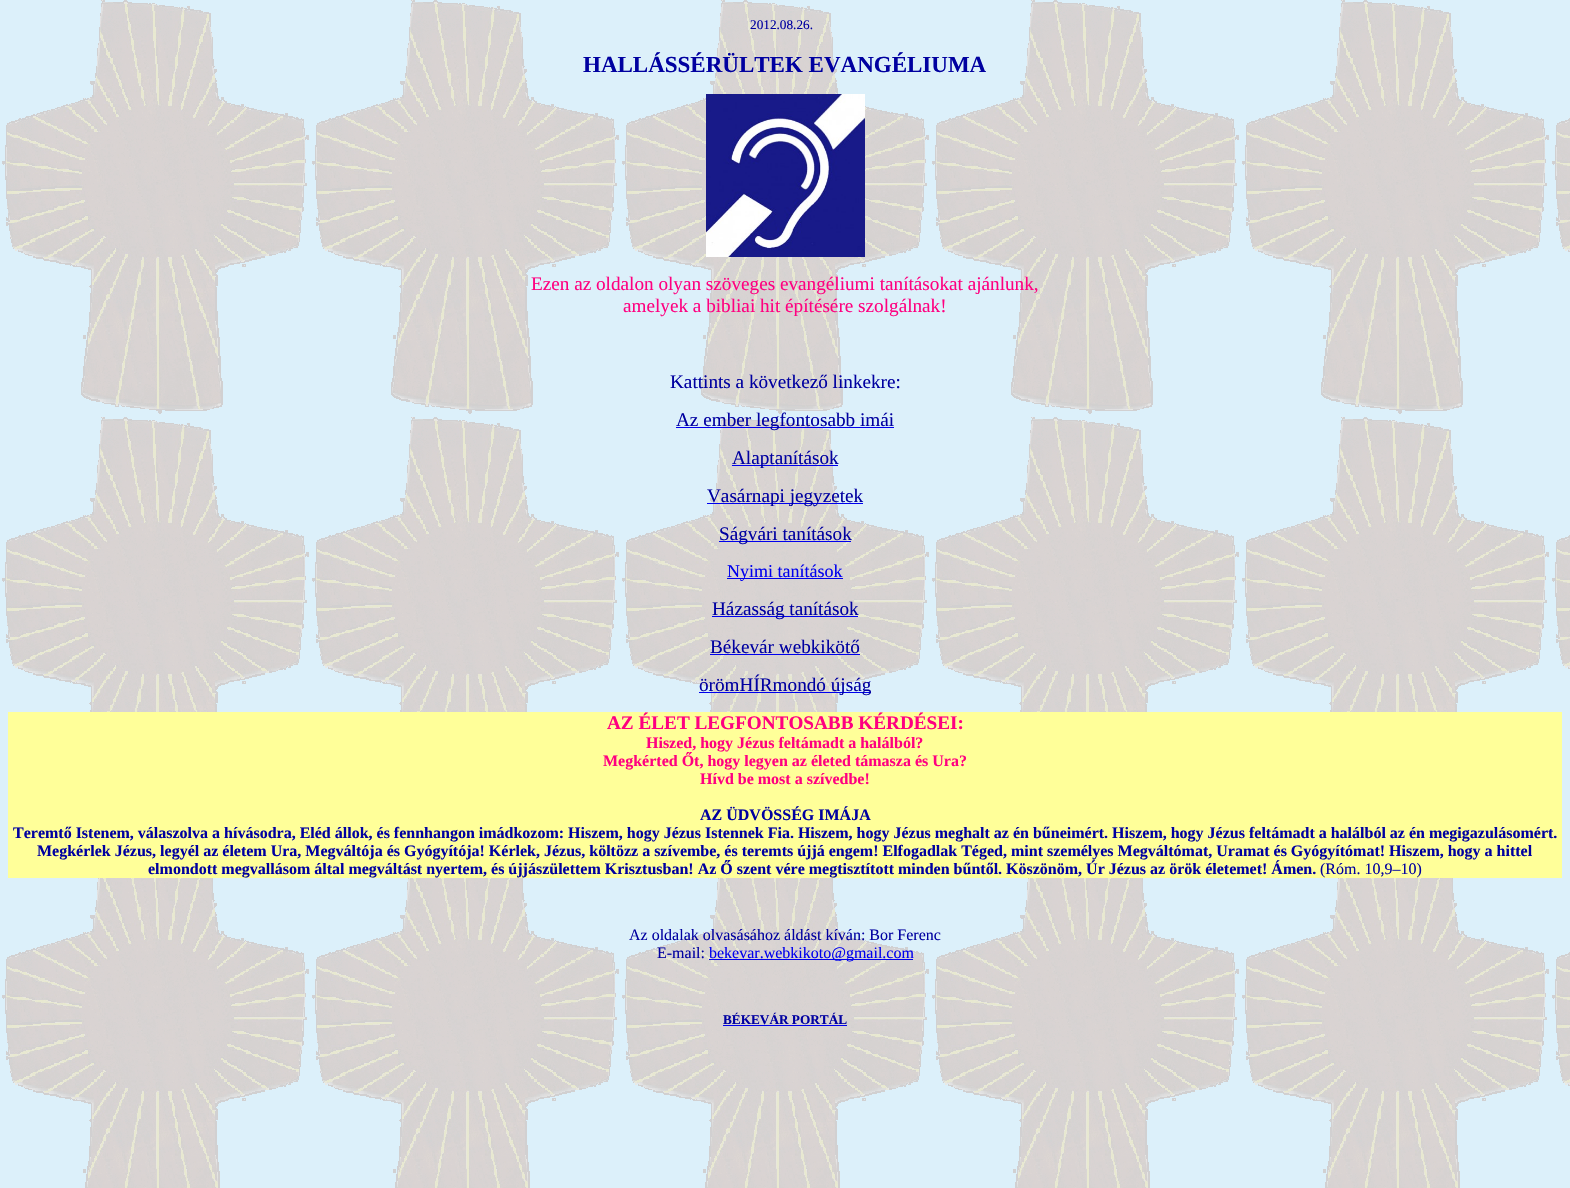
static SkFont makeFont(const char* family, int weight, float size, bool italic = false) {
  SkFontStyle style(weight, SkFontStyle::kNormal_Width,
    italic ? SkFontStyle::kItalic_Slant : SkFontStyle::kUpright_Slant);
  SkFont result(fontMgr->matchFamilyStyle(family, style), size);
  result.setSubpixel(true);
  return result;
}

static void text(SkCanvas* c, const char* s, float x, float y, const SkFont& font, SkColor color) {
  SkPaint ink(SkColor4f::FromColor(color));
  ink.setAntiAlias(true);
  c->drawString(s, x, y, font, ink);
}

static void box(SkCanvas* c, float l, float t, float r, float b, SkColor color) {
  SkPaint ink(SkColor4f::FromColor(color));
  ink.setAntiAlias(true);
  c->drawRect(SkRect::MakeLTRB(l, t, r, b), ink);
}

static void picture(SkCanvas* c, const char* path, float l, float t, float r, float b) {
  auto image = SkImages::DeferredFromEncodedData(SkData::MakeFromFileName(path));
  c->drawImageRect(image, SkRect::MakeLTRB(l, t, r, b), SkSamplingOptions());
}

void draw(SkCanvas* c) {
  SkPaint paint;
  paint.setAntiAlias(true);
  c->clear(0xffdcf0fa);
  picture(c, "img_01.png", 2, 0, 1570, 1188);
  SkFont face1 = makeFont("Liberation Serif", 400, 13.25f);
  text(c, "2012.08.26.", 750, 29, face1, 0xff0000a0);
  SkFont face2 = makeFont("Liberation Serif", 700, 23);
  text(c, "HALLÁSSÉRÜLTEK EVANGÉLIUMA", 583, 72, face2, 0xff0000a0);
  picture(c, "img_02.png", 706, 94, 865, 257);
  SkFont face3 = makeFont("Liberation Serif", 400, 19.2f);
  text(c, "Ezen az oldalon olyan szöveges evangéliumi tanításokat ajánlunk,", 531, 290, face3, 0xffff0080);
  text(c, "amelyek a bibliai hit építésére szolgálnak!", 623, 312, face3, 0xffff0080);
  text(c, "Kattints a következő linkekre:", 670, 388, face3, 0xff0000a0);
  box(c, 676, 427, 894, 428, 0xff0000ee);
  text(c, "Az ember legfontosabb imái", 676, 426, face3, 0xff0000a0);
  box(c, 732, 465, 838, 466, 0xff0000ee);
  text(c, "Alaptanítások", 732, 464, face3, 0xff0000a0);
  box(c, 707, 503, 863, 504, 0xff0000ee);
  text(c, "Vasárnapi jegyzetek", 707, 502, face3, 0xff0000a0);
  box(c, 719, 541, 851, 542, 0xff0000ee);
  text(c, "Ságvári tanítások", 719, 540, face3, 0xff0000a0);
  box(c, 727, 578, 843, 579, 0xff0000ee);
  SkFont face4 = makeFont("Liberation Serif", 400, 18);
  text(c, "Nyimi tanítások", 727, 577, face4, 0xff0000ee);
  box(c, 712, 616, 858, 617, 0xff0000ee);
  text(c, "Házasság tanítások", 712, 615, face3, 0xff0000a0);
  text(c, "Békevár webkikötő", 710, 653, face3, 0xff0000a0);
  box(c, 710, 654, 860, 655, 0xff0000ee);
  box(c, 699, 692, 871, 693, 0xff0000ee);
  text(c, "örömHÍRmondó újság", 699, 691, face3, 0xff0000a0);
  box(c, 8, 712, 1562, 878, 0xffffff99);
  SkFont face5 = makeFont("Liberation Serif", 700, 19.2f);
  text(c, "AZ ÉLET LEGFONTOSABB KÉRDÉSEI:", 607, 729, face5, 0xffff0080);
  SkFont face6 = makeFont("Liberation Serif", 700, 16);
  text(c, "Hiszed, hogy Jézus feltámadt a halálból?", 646, 748, face6, 0xffff0080);
  text(c, "Megkérted Őt, hogy legyen az életed támasza és Ura?", 603, 766, face6, 0xffff0080);
  text(c, "Hívd be most a szívedbe!", 700, 784, face6, 0xffff0080);
  text(c, "AZ ÜDVÖSSÉG IMÁJA", 700, 820, face6, 0xff0000a0);
  text(c, "Teremtő Istenem, válaszolva a hívásodra, Eléd állok, és fennhangon imádkozom: Hiszem, hogy Jézus Istennek Fia. Hiszem, hogy Jézus meghalt az én bűneimért. Hiszem, hogy Jézus feltámadt a halálból az én megigazulásomért.", 13, 838, face6, 0xff0000a0);
  text(c, "Megkérlek Jézus, legyél az életem Ura, Megváltója és Gyógyítója! Kérlek, Jézus, költözz a szívembe, és teremts újjá engem! Elfogadlak Téged, mint személyes Megváltómat, Uramat és Gyógyítómat! Hiszem, hogy a hittel", 37, 856, face6, 0xff0000a0);
  text(c, "elmondott megvallásom által megváltást nyertem, és újjászülettem Krisztusban! Az Ő szent vére megtisztított minden bűntől. Köszönöm, Úr Jézus az örök életemet! Ámen.", 148, 874, face6, 0xff0000a0);
  SkFont face7 = makeFont("Liberation Serif", 400, 16);
  text(c, "(Róm. 10,9–10)", 1320, 874, face7, 0xff0000a0);
  text(c, "Az oldalak olvasásához áldást kíván: Bor Ferenc", 629, 940, face7, 0xff0000a0);
  text(c, "E-mail:", 657, 958, face7, 0xff0000a0);
  box(c, 709, 959, 913, 960, 0xff0000ee);
  text(c, "bekevar.webkikoto@gmail.com", 709, 958, face7, 0xff0000ee);
  SkFont face8 = makeFont("Liberation Serif", 700, 13.25f);
  text(c, "BÉKEVÁR PORTÁL", 723, 1024, face8, 0xff0000a0);
  box(c, 723, 1025, 847, 1026, 0xff0000ee);
}
